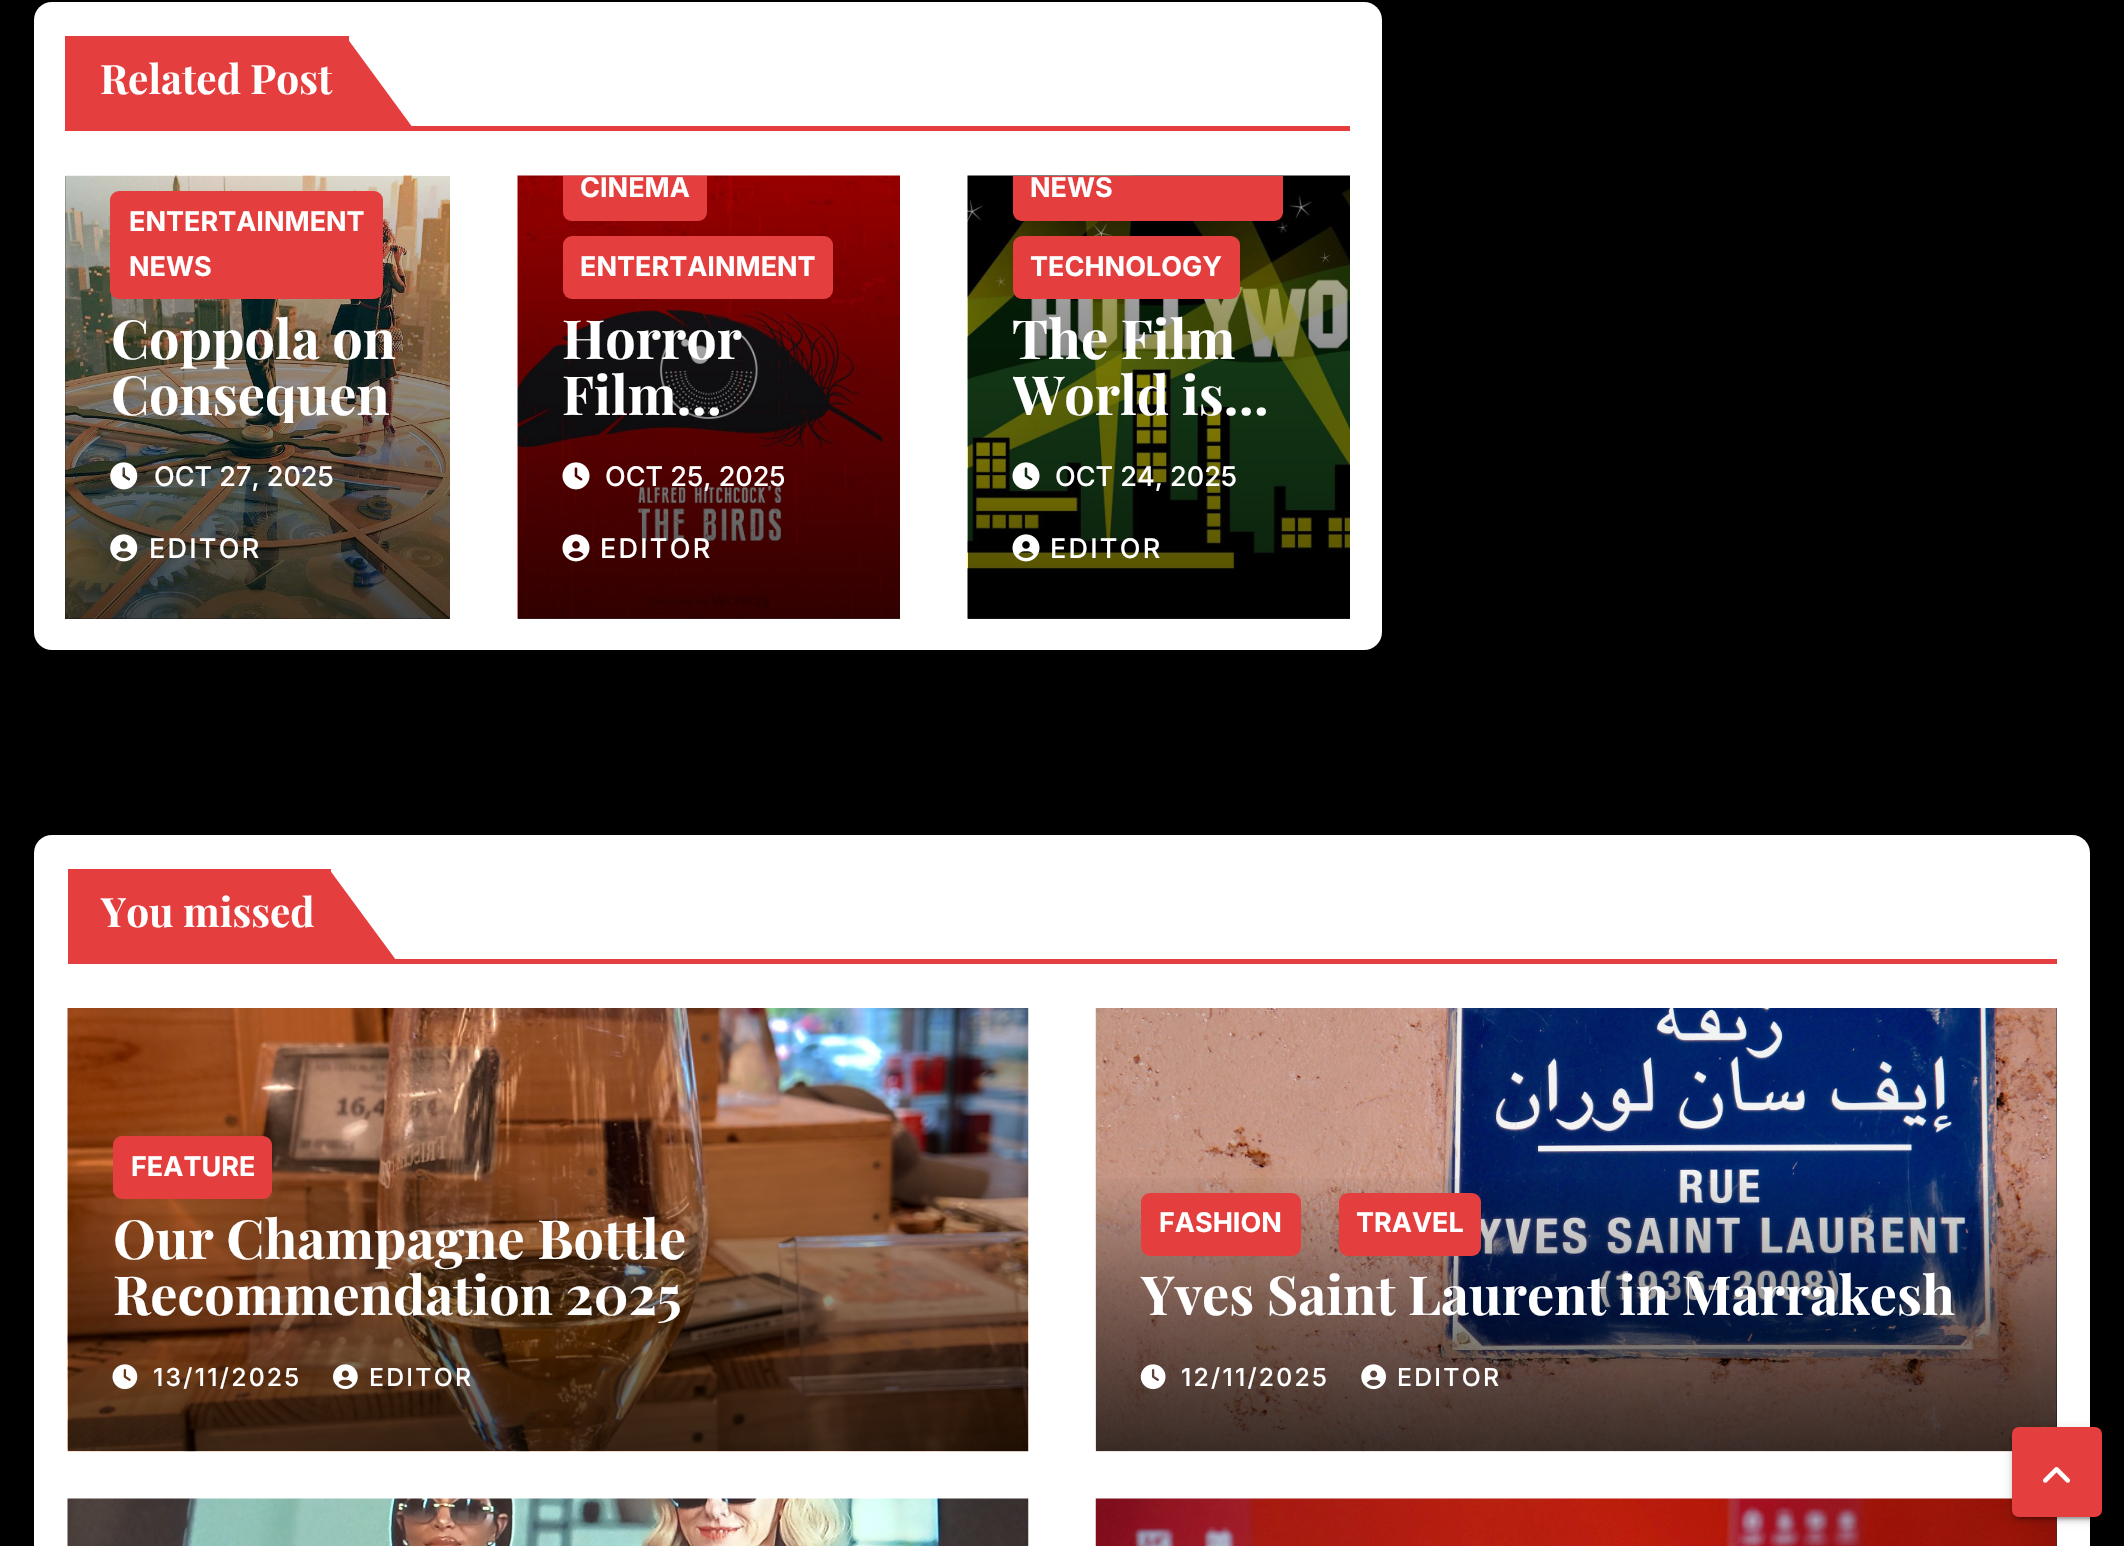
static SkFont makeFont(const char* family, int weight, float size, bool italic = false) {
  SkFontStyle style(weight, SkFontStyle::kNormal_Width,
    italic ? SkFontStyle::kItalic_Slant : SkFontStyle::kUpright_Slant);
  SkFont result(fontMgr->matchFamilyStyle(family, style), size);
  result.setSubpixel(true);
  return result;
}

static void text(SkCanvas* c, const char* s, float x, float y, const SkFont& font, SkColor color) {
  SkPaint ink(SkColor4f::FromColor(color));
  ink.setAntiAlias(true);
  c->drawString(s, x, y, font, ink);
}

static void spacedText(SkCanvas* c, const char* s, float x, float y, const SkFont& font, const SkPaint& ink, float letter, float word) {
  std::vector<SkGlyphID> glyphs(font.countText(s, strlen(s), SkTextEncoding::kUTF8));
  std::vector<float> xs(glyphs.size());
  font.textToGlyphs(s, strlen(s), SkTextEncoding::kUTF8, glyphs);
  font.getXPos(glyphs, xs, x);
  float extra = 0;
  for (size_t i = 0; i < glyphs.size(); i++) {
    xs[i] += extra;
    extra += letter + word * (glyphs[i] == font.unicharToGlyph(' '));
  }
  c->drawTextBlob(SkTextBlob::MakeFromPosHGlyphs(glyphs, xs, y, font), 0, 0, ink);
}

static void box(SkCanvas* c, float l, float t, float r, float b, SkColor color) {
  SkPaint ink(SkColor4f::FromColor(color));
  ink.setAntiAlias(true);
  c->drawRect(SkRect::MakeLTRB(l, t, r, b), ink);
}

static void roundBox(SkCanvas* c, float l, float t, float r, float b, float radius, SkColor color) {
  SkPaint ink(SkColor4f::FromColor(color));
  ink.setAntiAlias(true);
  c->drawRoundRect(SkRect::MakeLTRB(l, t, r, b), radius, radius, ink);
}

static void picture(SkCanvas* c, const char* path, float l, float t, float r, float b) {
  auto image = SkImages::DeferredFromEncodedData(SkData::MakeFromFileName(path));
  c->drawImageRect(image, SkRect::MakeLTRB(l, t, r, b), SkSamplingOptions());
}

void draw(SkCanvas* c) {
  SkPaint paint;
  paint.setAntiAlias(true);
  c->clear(0xff000000);
  roundBox(c, 34, 2, 1382, 650, 18, 0xffffffff);
  box(c, 65, 126, 1350, 131, 0xffe53e3e);
  box(c, 65, 36, 349, 126, 0xffe53e3e);
  SkFont face1 = makeFont("Playfair Display", 700, 40.5f);
  text(c, "Related Post", 100, 94, face1, 0xffffffff);
  paint.setColor(0xffe53e3e);
  c->drawPath(SkPathBuilder().moveTo(347, 38).lineTo(347, 128).lineTo(413, 128).close().detach(), paint);
  box(c, 65, 176, 450, 619, 0xff333333);
  picture(c, "img_01.png", 65, 175, 450, 619);
  {
    const SkColor colors[] = {0x00000000, 0x66000000, 0xb3000000};
    const float stops[] = {0, 0.5f, 1};
    const SkPoint ends[] = {{258, 90}, {258, 619}};
    paint.setShader(SkGradientShader::MakeLinear(ends, colors, stops, 3, SkTileMode::kClamp));
    paint.setAlpha(255);
  }
  c->drawRect(SkRect::MakeLTRB(65, 176, 450, 619), paint);
  roundBox(c, 110, 191, 383, 299, 9, 0xffe53e3e);
  SkFont face2 = makeFont("Inter", 700, 27);
  text(c, "ENTERTAINMENT", 129, 231, face2, 0xffffffff);
  text(c, "NEWS", 129, 276, face2, 0xffffffff);
  SkFont face3 = makeFont("Playfair Display", 700, 54);
  text(c, "Coppola on", 111, 359, face3, 0xffffffff);
  c->save();
  c->clipRect(SkRect::MakeLTRB(110, 311, 405, 423));
  text(c, "Consequen", 111, 415, face3, 0xffffffff);
  c->restore();
  picture(c, "img_02.png", 110, 462, 138, 490);
  SkFont face4 = makeFont("Inter", 500, 27);
  text(c, "OCT 27, 2025", 154, 486, face4, 0xffffffff);
  picture(c, "img_03.png", 110, 534, 138, 562);
  paint.setShader(nullptr);
  paint.setColor(0xffffffff);
  spacedText(c, "EDITOR", 149, 558, face4, paint, 2.25f, 0);
  picture(c, "img_04.png", 517, 175, 900, 619);
  {
    const SkColor colors[] = {0x00000000, 0x66000000, 0xb3000000};
    const float stops[] = {0, 0.5f, 1};
    const SkPoint ends[] = {{709, 135}, {709, 619}};
    paint.setShader(SkGradientShader::MakeLinear(ends, colors, stops, 3, SkTileMode::kClamp));
    paint.setAlpha(255);
  }
  c->drawRect(SkRect::MakeLTRB(518, 176, 900, 619), paint);
  paint.setShader(nullptr);
  paint.setColor(0xffe53e3e);
  c->drawPath(SkPathBuilder().moveTo(563, 176).lineTo(707, 176).lineTo(707, 212).cubicTo(707, 217, 703, 221, 698, 221).lineTo(572, 221).cubicTo(567, 221, 563, 217, 563, 212).close().detach(), paint);
  text(c, "CINEMA", 580, 197, face2, 0xffffffff);
  roundBox(c, 563, 236, 833, 299, 9, 0xffe53e3e);
  text(c, "ENTERTAINMENT", 580, 276, face2, 0xffffffff);
  text(c, "Horror", 562, 359, face3, 0xffffffff);
  text(c, "Film…", 562, 415, face3, 0xffffffff);
  picture(c, "img_05.png", 562, 462, 590, 490);
  text(c, "OCT 25, 2025", 605, 486, face4, 0xffffffff);
  picture(c, "img_06.png", 562, 534, 590, 562);
  paint.setColor(0xffffffff);
  spacedText(c, "EDITOR", 600, 558, face4, paint, 2.25f, 0);
  picture(c, "img_07.png", 967, 175, 1350, 619);
  {
    const SkColor colors[] = {0x00000000, 0x66000000, 0xb3000000};
    const float stops[] = {0, 0.5f, 1};
    const SkPoint ends[] = {{1159, 11}, {1159, 619}};
    paint.setShader(SkGradientShader::MakeLinear(ends, colors, stops, 3, SkTileMode::kClamp));
    paint.setAlpha(255);
  }
  c->drawRect(SkRect::MakeLTRB(968, 176, 1350, 619), paint);
  paint.setShader(nullptr);
  paint.setColor(0xffe53e3e);
  c->drawPath(SkPathBuilder().moveTo(1013, 176).lineTo(1283, 176).lineTo(1283, 212).cubicTo(1283, 217, 1279, 221, 1274, 221).lineTo(1022, 221).cubicTo(1017, 221, 1013, 217, 1013, 212).close().detach(), paint);
  text(c, "NEWS", 1030, 197, face2, 0xffffffff);
  roundBox(c, 1013, 236, 1240, 299, 9, 0xffe53e3e);
  text(c, "TECHNOLOGY", 1030, 276, face2, 0xffffffff);
  text(c, "The Film", 1012, 359, face3, 0xffffffff);
  c->save();
  c->clipRect(SkRect::MakeLTRB(1013, 311, 1305, 423));
  text(c, "World is…", 1012, 415, face3, 0xffffffff);
  c->restore();
  picture(c, "img_08.png", 1012, 462, 1040, 490);
  text(c, "OCT 24, 2025", 1055, 486, face4, 0xffffffff);
  picture(c, "img_09.png", 1012, 534, 1040, 562);
  paint.setColor(0xffffffff);
  spacedText(c, "EDITOR", 1050, 558, face4, paint, 2.25f, 0);
  roundBox(c, 34, 835, 2090, 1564, 18, 0xffffffff);
  box(c, 68, 959, 2057, 964, 0xffe53e3e);
  box(c, 68, 869, 331, 959, 0xffe53e3e);
  text(c, "You missed", 101, 927, face1, 0xffffffff);
  paint.setColor(0xffe53e3e);
  c->drawPath(SkPathBuilder().moveTo(329, 869).lineTo(329, 960).lineTo(396, 960).close().detach(), paint);
  picture(c, "img_10.png", 67, 1008, 1029, 1452);
  roundBox(c, 113, 1136, 272, 1199, 9, 0xffe53e3e);
  text(c, "FEATURE", 131, 1176, face2, 0xffffffff);
  text(c, "Our Champagne Bottle", 113, 1259, face3, 0xffffffff);
  text(c, "Recommendation 2025", 113, 1315, face3, 0xffffffff);
  picture(c, "img_11.png", 112, 1364, 138, 1390);
  SkFont face5 = makeFont("Inter", 500, 24.75f);
  paint.setColor(0xffffffff);
  spacedText(c, "13/11/2025", 153, 1386, face5, paint, 2.25f, 0);
  picture(c, "img_12.png", 333, 1364, 358, 1390);
  spacedText(c, "EDITOR", 369, 1386, face5, paint, 2.25f, 0);
  box(c, 2056, 1008, 2057, 1427, 0xff333333);
  picture(c, "img_13.png", 1095, 1008, 2057, 1452);
  {
    const SkColor colors[] = {0x00000000, 0x66000000, 0xb3000000};
    const float stops[] = {0, 0.5f, 1};
    const SkPoint ends[] = {{1576, 1170}, {1576, 1451}};
    paint.setShader(SkGradientShader::MakeLinear(ends, colors, stops, 3, SkTileMode::kClamp));
    paint.setAlpha(255);
  }
  c->drawRect(SkRect::MakeLTRB(1096, 1178, 2057, 1451), paint);
  roundBox(c, 1141, 1193, 1301, 1256, 9, 0xffe53e3e);
  text(c, "FASHION", 1159, 1232, face2, 0xffffffff);
  roundBox(c, 1339, 1193, 1481, 1256, 9, 0xffe53e3e);
  text(c, "TRAVEL", 1356, 1232, face2, 0xffffffff);
  text(c, "Yves Saint Laurent in Marrakesh", 1141, 1315, face3, 0xffffffff);
  picture(c, "img_14.png", 1140, 1364, 1166, 1390);
  paint.setShader(nullptr);
  paint.setColor(0xffffffff);
  spacedText(c, "12/11/2025", 1181, 1386, face5, paint, 2.25f, 0);
  picture(c, "img_15.png", 1361, 1364, 1386, 1390);
  spacedText(c, "EDITOR", 1397, 1386, face5, paint, 2.25f, 0);
  picture(c, "img_16.png", 67, 1498, 1029, 1546);
  box(c, 2056, 1517, 2057, 1546, 0xff333333);
  picture(c, "img_17.png", 1095, 1498, 2057, 1546);
  paint.setColor(0x1f000000);
  paint.setMaskFilter(SkMaskFilter::MakeBlur(kNormal_SkBlurStyle, 5.5f));
  c->drawRoundRect(SkRect::MakeLTRB(2012, 1429, 2102, 1519), 7, 7, paint);
  paint.setMaskFilter(nullptr);
  paint.setColor(0x33000000);
  paint.setMaskFilter(SkMaskFilter::MakeBlur(kNormal_SkBlurStyle, 1));
  c->drawRoundRect(SkRect::MakeLTRB(2016, 1438, 2097, 1519), 2, 2, paint);
  paint.setMaskFilter(nullptr);
  paint.setColor(0x24000000);
  paint.setMaskFilter(SkMaskFilter::MakeBlur(kNormal_SkBlurStyle, 2));
  c->drawRoundRect(SkRect::MakeLTRB(2012, 1431, 2102, 1521), 7, 7, paint);
  paint.setMaskFilter(nullptr);
  paint.setColor(0xffe53e3e);
  c->drawRoundRect(SkRect::MakeLTRB(2014.5f, 1429.5f, 2099.5f, 1514.5f), 4.5f, 4.5f, paint);
  paint.setStyle(SkPaint::kStroke_Style);
  paint.setStrokeWidth(5);
  c->drawRoundRect(SkRect::MakeLTRB(2014.5f, 1429.5f, 2099.5f, 1514.5f), 4.5f, 4.5f, paint);
  picture(c, "img_18.png", 2043, 1467, 2070, 1483);
}
